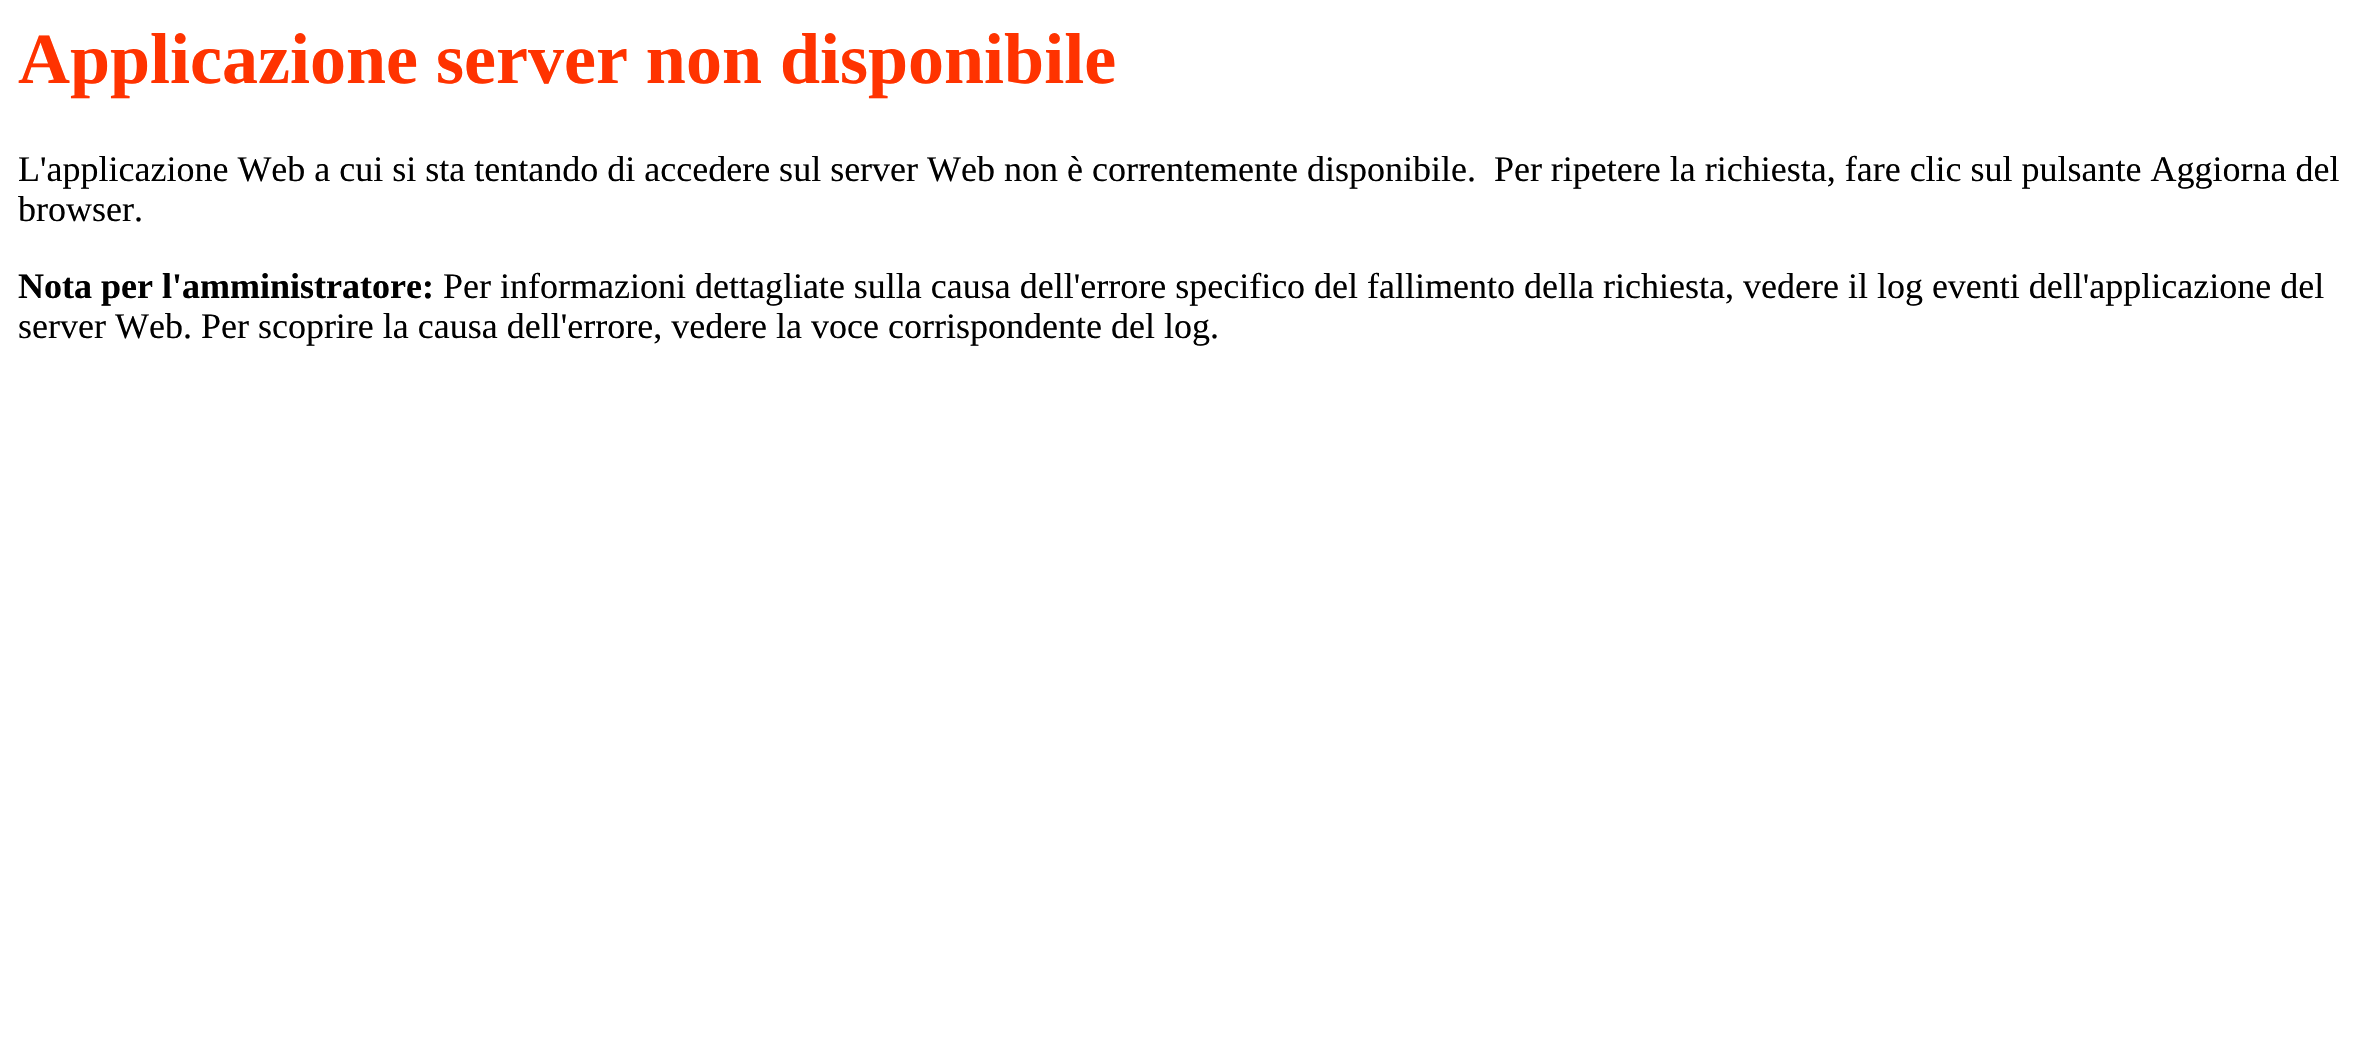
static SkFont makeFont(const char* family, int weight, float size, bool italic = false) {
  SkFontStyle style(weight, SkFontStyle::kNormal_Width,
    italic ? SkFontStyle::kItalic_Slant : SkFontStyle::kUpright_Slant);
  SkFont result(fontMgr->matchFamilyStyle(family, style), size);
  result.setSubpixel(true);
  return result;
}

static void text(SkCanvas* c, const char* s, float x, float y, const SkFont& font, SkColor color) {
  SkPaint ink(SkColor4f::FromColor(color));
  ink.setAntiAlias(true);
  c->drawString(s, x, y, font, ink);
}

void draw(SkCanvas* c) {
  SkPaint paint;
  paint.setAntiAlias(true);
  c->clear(0xffffffff);
  SkFont face1 = makeFont("Liberation Serif", 700, 72);
  text(c, "Applicazione server non disponibile", 18, 83, face1, 0xffff3300);
  SkFont face2 = makeFont("Liberation Serif", 400, 36);
  text(c, "L'applicazione Web a cui si sta tentando di accedere sul server Web non è correntemente disponibile.  Per ripetere la richiesta, fare clic sul pulsante Aggiorna del", 18, 181, face2, 0xff000000);
  text(c, "browser.", 18, 221, face2, 0xff000000);
  SkFont face3 = makeFont("Liberation Serif", 700, 36);
  text(c, "Nota per l'amministratore:", 18, 298, face3, 0xff000000);
  text(c, "Per informazioni dettagliate sulla causa dell'errore specifico del fallimento della richiesta, vedere il log eventi dell'applicazione del", 443, 298, face2, 0xff000000);
  text(c, "server Web. Per scoprire la causa dell'errore, vedere la voce corrispondente del log.", 18, 338, face2, 0xff000000);
}
